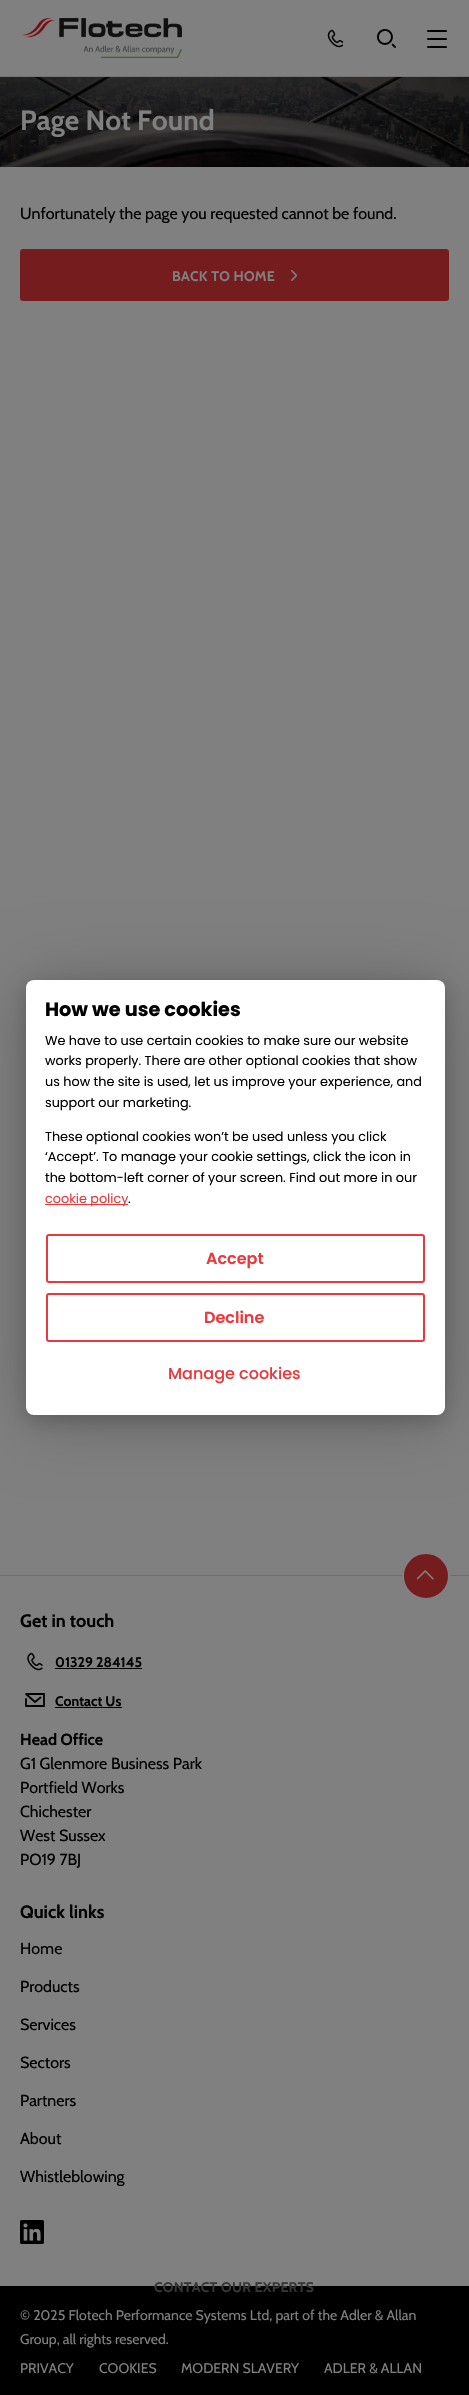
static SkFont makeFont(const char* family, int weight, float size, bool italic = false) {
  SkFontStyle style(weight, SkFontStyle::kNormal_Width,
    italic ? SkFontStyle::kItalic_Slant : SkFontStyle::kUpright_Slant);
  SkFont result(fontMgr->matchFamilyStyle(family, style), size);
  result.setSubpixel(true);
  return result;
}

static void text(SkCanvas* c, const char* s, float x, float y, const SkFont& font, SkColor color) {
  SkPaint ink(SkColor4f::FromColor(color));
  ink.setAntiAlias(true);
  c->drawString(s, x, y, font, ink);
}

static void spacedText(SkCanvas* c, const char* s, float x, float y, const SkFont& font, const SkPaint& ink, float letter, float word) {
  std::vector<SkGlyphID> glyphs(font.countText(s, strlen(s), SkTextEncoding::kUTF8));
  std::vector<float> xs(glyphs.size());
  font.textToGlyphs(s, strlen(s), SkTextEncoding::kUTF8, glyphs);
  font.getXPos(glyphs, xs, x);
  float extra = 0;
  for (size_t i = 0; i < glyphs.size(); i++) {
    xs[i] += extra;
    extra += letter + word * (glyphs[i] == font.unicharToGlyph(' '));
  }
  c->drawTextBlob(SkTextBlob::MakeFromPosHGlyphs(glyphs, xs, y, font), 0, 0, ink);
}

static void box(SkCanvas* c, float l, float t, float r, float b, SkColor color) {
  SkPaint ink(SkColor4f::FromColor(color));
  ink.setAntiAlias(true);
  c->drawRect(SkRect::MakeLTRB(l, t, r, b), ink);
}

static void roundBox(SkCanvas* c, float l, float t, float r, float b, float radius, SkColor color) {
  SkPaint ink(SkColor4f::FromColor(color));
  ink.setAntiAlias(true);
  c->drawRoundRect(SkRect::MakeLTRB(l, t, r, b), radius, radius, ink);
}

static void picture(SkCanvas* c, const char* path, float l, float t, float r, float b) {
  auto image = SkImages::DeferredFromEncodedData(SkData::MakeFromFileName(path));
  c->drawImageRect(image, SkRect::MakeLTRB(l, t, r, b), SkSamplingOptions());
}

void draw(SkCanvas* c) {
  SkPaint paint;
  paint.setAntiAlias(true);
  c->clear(0xff808080);
  picture(c, "img_01.png", 0, 77, 469, 167);
  SkFont face1 = makeFont("Cabin", 700, 28);
  text(c, "Page Not Found", 20, 130, face1, 0xff808080);
  SkFont face2 = makeFont("Cabin", 400, 16);
  text(c, "Unfortunately the page you requested cannot be found.", 20, 219, face2, 0xff000000);
  roundBox(c, 20, 249, 449, 301, 3, 0xff751d1e);
  SkFont face3 = makeFont("Cabin", 700, 14);
  paint.setColor(0xff808080);
  spacedText(c, "BACK TO HOME", 172, 281, face3, paint, 0.25f, 0);
  picture(c, "img_02.png", 291, 270, 297, 281);
  paint.setColor(0x30000000);
  paint.setMaskFilter(SkMaskFilter::MakeBlur(kNormal_SkBlurStyle, 10));
  c->drawRoundRect(SkRect::MakeLTRB(26, 986, 445, 1421), 8, 8, paint);
  paint.setMaskFilter(nullptr);
  paint.setColor(0x33000000);
  paint.setMaskFilter(SkMaskFilter::MakeBlur(kNormal_SkBlurStyle, 35));
  c->drawRoundRect(SkRect::MakeLTRB(26, 984, 445, 1419), 8, 8, paint);
  paint.setMaskFilter(nullptr);
  roundBox(c, 26, 980, 445, 1415, 8, 0xffffffff);
  SkFont face4 = makeFont("Poppins", 700, 19.25f);
  text(c, "How we use cookies", 45, 1016, face4, 0xff000000);
  SkFont face5 = makeFont("Poppins", 400, 12.8f);
  text(c, "We have to use certain cookies to make sure our website", 45, 1045, face5, 0xff000000);
  text(c, "works properly. There are other optional cookies that show", 45, 1065, face5, 0xff000000);
  text(c, "us how the site is used, let us improve your experience, and", 45, 1086, face5, 0xff000000);
  text(c, "support our marketing.", 45, 1107, face5, 0xff000000);
  text(c, "These optional cookies won’t be used unless you click", 45, 1141, face5, 0xff000000);
  text(c, "‘Accept’. To manage your cookie settings, click the icon in", 45, 1161, face5, 0xff000000);
  text(c, "the bottom-left corner of your screen. Find out more in our", 45, 1182, face5, 0xff000000);
  box(c, 45, 1204, 128, 1205, 0xffea393c);
  text(c, "cookie policy", 45, 1203, face5, 0xffea393c);
  text(c, ".", 128, 1203, face5, 0xff000000);
  paint.setStyle(SkPaint::kStroke_Style);
  paint.setStrokeWidth(2);
  paint.setColor(0xffea393c);
  c->drawRoundRect(SkRect::MakeLTRB(47, 1235, 424, 1282), 2, 2, paint);
  SkFont face6 = makeFont("Poppins", 600, 16);
  text(c, "Accept", 206, 1264, face6, 0xffea393c);
  c->drawRoundRect(SkRect::MakeLTRB(47, 1294, 424, 1341), 2, 2, paint);
  text(c, "Decline", 204, 1323, face6, 0xffea393c);
  SkFont face7 = makeFont("Poppins", 500, 16);
  text(c, "Manage cookies", 168, 1379, face7, 0xffea393c);
  box(c, 0, 1575, 469, 1576, 0xff6d6d6d);
  paint.setStyle(SkPaint::kFill_Style);
  paint.setColor(0xff751d1e);
  c->drawCircle(426, 1576, 23, paint);
  paint.setStyle(SkPaint::kStroke_Style);
  paint.setColor(0xff808080);
  c->drawCircle(426, 1576, 23, paint);
  picture(c, "img_03.png", 417, 1570, 434, 1580);
  SkFont face8 = makeFont("Cabin", 700, 18);
  text(c, "Get in touch", 20, 1627, face8, 0xff000000);
  picture(c, "img_04.png", 27, 1652, 43, 1671);
  text(c, "01329 284145", 55, 1667, face3, 0xff000000);
  box(c, 55, 1668, 142, 1669, 0xff000000);
  paint.setStrokeWidth(1.8f);
  paint.setStrokeCap(SkPaint::kRound_Cap);
  paint.setStrokeJoin(SkPaint::kRound_Join);
  paint.setColor(0xff000000);
  c->drawPath(SkPathBuilder().moveTo(26, 1699).lineTo(26, 1706).lineTo(44, 1706).lineTo(44, 1694).lineTo(26, 1694).lineTo(35, 1702).lineTo(40.5f, 1697.5f).detach(), paint);
  text(c, "Contact Us", 55, 1706, face3, 0xff000000);
  box(c, 55, 1707, 122, 1708, 0xff000000);
  SkFont face9 = makeFont("Cabin", 700, 16);
  text(c, "Head Office", 20, 1745, face9, 0xff000000);
  text(c, "G1 Glenmore Business Park", 20, 1769, face2, 0xff000000);
  text(c, "Portfield Works", 20, 1793, face2, 0xff000000);
  text(c, "Chichester", 20, 1817, face2, 0xff000000);
  text(c, "West Sussex", 20, 1841, face2, 0xff000000);
  text(c, "PO19 7BJ", 20, 1865, face2, 0xff000000);
  text(c, "Quick links", 20, 1918, face8, 0xff000000);
  text(c, "Home", 20, 1954, face2, 0xff000000);
  text(c, "Products", 20, 1992, face2, 0xff000000);
  text(c, "Services", 20, 2030, face2, 0xff000000);
  text(c, "Sectors", 20, 2068, face2, 0xff000000);
  text(c, "Partners", 20, 2106, face2, 0xff000000);
  text(c, "About", 20, 2144, face2, 0xff000000);
  text(c, "Whistleblowing", 20, 2182, face2, 0xff000000);
  picture(c, "img_05.png", 20, 2220, 44, 2244);
  box(c, 0, 2286, 469, 2395, 0xff000000);
  SkFont face10 = makeFont("Cabin", 400, 14);
  text(c, "© 2025 Flotech Performance Systems Ltd, part of the Adler & Allan", 20, 2320, face10, 0xff808080);
  text(c, "Group, all rights reserved.", 20, 2344, face10, 0xff808080);
  text(c, "PRIVACY", 20, 2373, face10, 0xff808080);
  text(c, "COOKIES", 99, 2373, face10, 0xff808080);
  text(c, "MODERN SLAVERY", 181, 2373, face10, 0xff808080);
  text(c, "ADLER & ALLAN", 324, 2373, face10, 0xff808080);
  box(c, 0, 76, 469, 77, 0xff747374);
  picture(c, "img_06.png", 21, 18, 182, 58);
  picture(c, "img_07.png", 327, 29, 344, 48);
  picture(c, "img_08.png", 377, 29, 396, 48);
  paint.setStrokeWidth(2);
  paint.setStrokeJoin(SkPaint::kMiter_Join);
  c->drawPath(SkPathBuilder().moveTo(428, 31).lineTo(446, 31).moveTo(428, 39).lineTo(446, 39).moveTo(428, 47).lineTo(446, 47).detach(), paint);
  paint.setStyle(SkPaint::kFill_Style);
  paint.setColor(0xff363636);
  spacedText(c, "CONTACT OUR EXPERTS", 154, 2292, face3, paint, 0.25f, 0);
}
